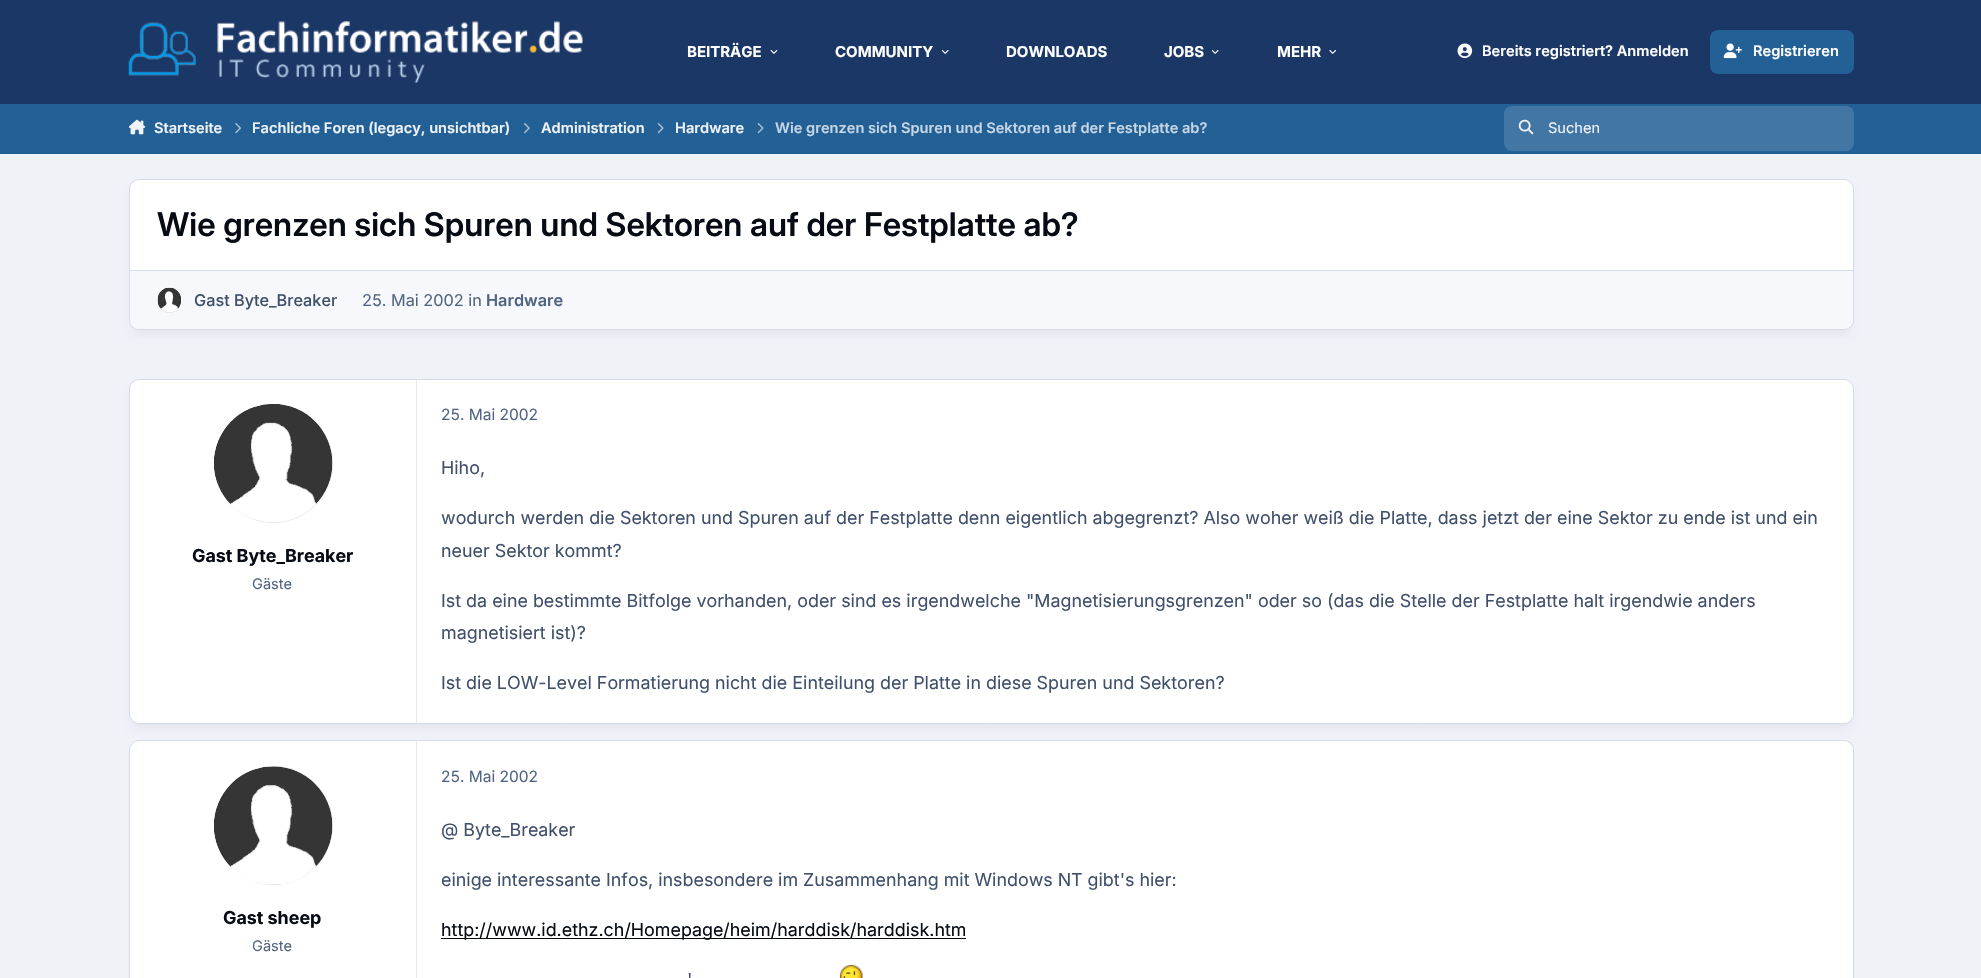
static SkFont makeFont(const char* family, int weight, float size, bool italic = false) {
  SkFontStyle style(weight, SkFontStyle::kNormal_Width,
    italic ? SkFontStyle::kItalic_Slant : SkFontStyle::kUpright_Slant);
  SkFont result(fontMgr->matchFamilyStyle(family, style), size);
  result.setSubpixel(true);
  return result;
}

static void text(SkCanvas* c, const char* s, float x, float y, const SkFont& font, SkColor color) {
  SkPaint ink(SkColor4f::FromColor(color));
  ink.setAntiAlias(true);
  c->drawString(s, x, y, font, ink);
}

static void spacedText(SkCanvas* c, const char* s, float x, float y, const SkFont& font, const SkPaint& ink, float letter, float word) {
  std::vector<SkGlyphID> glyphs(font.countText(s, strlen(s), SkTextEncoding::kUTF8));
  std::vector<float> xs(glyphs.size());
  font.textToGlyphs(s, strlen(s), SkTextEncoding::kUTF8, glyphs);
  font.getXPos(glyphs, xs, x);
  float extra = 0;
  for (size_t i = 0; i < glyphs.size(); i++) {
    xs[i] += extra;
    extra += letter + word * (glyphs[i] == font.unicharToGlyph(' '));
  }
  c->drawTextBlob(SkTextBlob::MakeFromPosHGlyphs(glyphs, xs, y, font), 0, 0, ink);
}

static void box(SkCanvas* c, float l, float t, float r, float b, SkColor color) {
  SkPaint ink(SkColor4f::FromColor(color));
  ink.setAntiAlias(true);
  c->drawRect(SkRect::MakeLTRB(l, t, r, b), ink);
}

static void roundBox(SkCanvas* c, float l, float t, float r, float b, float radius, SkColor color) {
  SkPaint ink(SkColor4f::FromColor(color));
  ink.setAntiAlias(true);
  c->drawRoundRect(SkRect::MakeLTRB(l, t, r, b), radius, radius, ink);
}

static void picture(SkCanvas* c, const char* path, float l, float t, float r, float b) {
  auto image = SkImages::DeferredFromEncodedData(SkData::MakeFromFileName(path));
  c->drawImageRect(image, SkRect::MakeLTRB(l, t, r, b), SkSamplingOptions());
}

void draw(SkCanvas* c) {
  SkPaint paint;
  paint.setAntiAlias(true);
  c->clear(0xffeff2f7);
  box(c, 0, 0, 1981, 104, 0xff1a3766);
  picture(c, "img_01.png", 128, 21, 583, 83);
  SkFont face1 = makeFont("Inter", 700, 15);
  text(c, "BEITRÄGE", 687, 57, face1, 0xffffffff);
  picture(c, "img_02.png", 770, 50, 778, 54);
  text(c, "COMMUNITY", 835, 57, face1, 0xffffffff);
  picture(c, "img_03.png", 941, 50, 949, 54);
  text(c, "DOWNLOADS", 1006, 57, face1, 0xffffffff);
  text(c, "JOBS", 1164, 57, face1, 0xffffffff);
  picture(c, "img_03.png", 1211, 50, 1219, 54);
  text(c, "MEHR", 1277, 57, face1, 0xffffffff);
  picture(c, "img_04.png", 1329, 50, 1336, 54);
  picture(c, "img_05.png", 1457, 43, 1473, 59);
  SkFont face2 = makeFont("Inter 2", 600, 14.6f);
  text(c, "Bereits registriert? Anmelden", 1482, 56, face2, 0xffffffff);
  roundBox(c, 1710, 30, 1854, 74, 8, 0xff226096);
  picture(c, "img_06.png", 1723, 43, 1742, 59);
  text(c, "Registrieren", 1753, 56, face2, 0xffffffff);
  box(c, 0, 104, 1981, 154, 0xff226096);
  picture(c, "img_07.png", 129, 119, 146, 135);
  text(c, "Startseite", 154, 133, face2, 0xffeff2f7);
  picture(c, "img_08.png", 235, 123, 241, 134);
  text(c, "Fachliche Foren (legacy, unsichtbar)", 252, 133, face2, 0xffeff2f7);
  picture(c, "img_09.png", 524, 123, 530, 134);
  text(c, "Administration", 541, 133, face2, 0xffeff2f7);
  picture(c, "img_10.png", 657, 123, 664, 134);
  text(c, "Hardware", 675, 133, face2, 0xffeff2f7);
  picture(c, "img_10.png", 757, 123, 764, 134);
  text(c, "Wie grenzen sich Spuren und Sektoren auf der Festplatte ab?", 775, 133, face2, 0xffc6d5e4);
  roundBox(c, 1504, 106, 1854, 151, 8, 0xff4176a5);
  picture(c, "img_11.png", 1518, 119, 1534, 135);
  SkFont face3 = makeFont("Inter", 400, 14.6f);
  text(c, "Suchen", 1548, 133, face3, 0xffeff2f7);
  paint.setColor(0x0d01030a);
  paint.setMaskFilter(SkMaskFilter::MakeBlur(kNormal_SkBlurStyle, 4.5f));
  c->drawRoundRect(SkRect::MakeLTRB(133, 190, 1850, 334), 6, 6, paint);
  paint.setMaskFilter(nullptr);
  paint.setColor(0xffffffff);
  c->drawRoundRect(SkRect::MakeLTRB(129.5f, 179.5f, 1853.5f, 329.5f), 9.5f, 9.5f, paint);
  paint.setStyle(SkPaint::kStroke_Style);
  paint.setStrokeWidth(1);
  paint.setColor(0xffd5dbe6);
  c->drawRoundRect(SkRect::MakeLTRB(129.5f, 179.5f, 1853.5f, 329.5f), 9.5f, 9.5f, paint);
  SkFont face4 = makeFont("Inter", 600, 32.5f);
  text(c, "Wie grenzen sich Spuren und Sektoren auf der Festplatte ab?", 157, 236, face4, 0xff060b14);
  paint.setStyle(SkPaint::kFill_Style);
  paint.setColor(0xfff7f8fb);
  c->drawPath(SkPathBuilder().moveTo(130, 270).lineTo(1853, 270).lineTo(1853, 319).cubicTo(1853, 324.5f, 1848.5f, 329, 1843, 329).lineTo(140, 329).cubicTo(134.5f, 329, 130, 324.5f, 130, 319).close().detach(), paint);
  box(c, 130, 270, 1853, 271, 0xffd7dfea);
  roundBox(c, 158, 288, 181, 313, 11.5f, 0xffe5eaf2);
  picture(c, "img_12.png", 157, 287, 181, 312);
  SkFont face5 = makeFont("Inter", 500, 16.25f);
  text(c, "Gast Byte_Breaker", 194, 306, face5, 0xff40506b);
  SkFont face6 = makeFont("Inter", 400, 16.25f);
  text(c, "25. Mai 2002 in", 362, 306, face6, 0xff516483);
  SkFont face7 = makeFont("Inter 2", 600, 16.25f);
  text(c, "Hardware", 486, 306, face7, 0xff516483);
  paint.setColor(0x0d01030a);
  paint.setMaskFilter(SkMaskFilter::MakeBlur(kNormal_SkBlurStyle, 4.5f));
  c->drawRoundRect(SkRect::MakeLTRB(133, 390, 1850, 728), 6, 6, paint);
  paint.setMaskFilter(nullptr);
  paint.setColor(0xffffffff);
  c->drawRoundRect(SkRect::MakeLTRB(129.5f, 379.5f, 1853.5f, 723.5f), 9.5f, 9.5f, paint);
  paint.setStyle(SkPaint::kStroke_Style);
  paint.setColor(0xffd5dbe6);
  c->drawRoundRect(SkRect::MakeLTRB(129.5f, 379.5f, 1853.5f, 723.5f), 9.5f, 9.5f, paint);
  box(c, 416, 380, 417, 723, 0xffe5eaf2);
  paint.setStyle(SkPaint::kFill_Style);
  paint.setColor(0xffe5eaf2);
  c->drawCircle(273.5f, 463.5f, 59.5f, paint);
  picture(c, "img_13.png", 214, 404, 333, 522);
  SkFont face8 = makeFont("Inter", 700, 17.88f);
  text(c, "Gast Byte_Breaker", 192, 562, face8, 0xff060b14);
  text(c, "Gäste", 252, 589, face3, 0xff516483);
  SkFont face9 = makeFont("Inter", 400, 15.5f);
  text(c, "25. Mai 2002", 441, 420, face9, 0xff516483);
  SkFont face10 = makeFont("Inter", 400, 17.88f);
  text(c, "Hiho,", 441, 474, face10, 0xff40506b);
  text(c, "wodurch werden die Sektoren und Spuren auf der Festplatte denn eigentlich abgegrenzt? Also woher weiß die Platte, dass jetzt der eine Sektor zu ende ist und ein", 441, 524, face10, 0xff40506b);
  text(c, "neuer Sektor kommt?", 441, 557, face10, 0xff40506b);
  text(c, "Ist da eine bestimmte Bitfolge vorhanden, oder sind es irgendwelche \"Magnetisierungsgrenzen\" oder so (das die Stelle der Festplatte halt irgendwie anders", 441, 607, face10, 0xff40506b);
  text(c, "magnetisiert ist)?", 441, 639, face10, 0xff40506b);
  text(c, "Ist die LOW-Level Formatierung nicht die Einteilung der Platte in diese Spuren und Sektoren?", 441, 689, face10, 0xff40506b);
  paint.setColor(0xffffffff);
  c->drawRoundRect(SkRect::MakeLTRB(129.5f, 740.5f, 1853.5f, 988.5f), 9.5f, 9.5f, paint);
  paint.setStyle(SkPaint::kStroke_Style);
  paint.setColor(0xffd5dbe6);
  c->drawRoundRect(SkRect::MakeLTRB(129.5f, 740.5f, 1853.5f, 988.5f), 9.5f, 9.5f, paint);
  box(c, 416, 741, 417, 978, 0xffe5eaf2);
  paint.setStyle(SkPaint::kFill_Style);
  paint.setColor(0xffe5eaf2);
  c->drawCircle(273.5f, 825.5f, 59.5f, paint);
  picture(c, "img_14.png", 214, 766, 333, 885);
  text(c, "Gast sheep", 223, 924, face8, 0xff060b14);
  text(c, "Gäste", 252, 951, face3, 0xff516483);
  text(c, "25. Mai 2002", 441, 782, face9, 0xff516483);
  text(c, "@ Byte_Breaker", 441, 836, face10, 0xff40506b);
  paint.setColor(0xff40506b);
  spacedText(c, "einige interessante Infos, insbesondere im Zusammenhang mit Windows NT gibt's hier:", 441, 886, face10, paint, 0, -0.1f);
  box(c, 441, 938, 966, 939, 0xff060b14);
  text(c, "http://www.id.ethz.ch/Homepage/heim/harddisk/harddisk.htm", 441, 936, face10, 0xff060b14);
  text(c, "'", 687, 986, face10, 0xff40506b);
  picture(c, "img_15.png", 839, 964, 863, 978);
}
